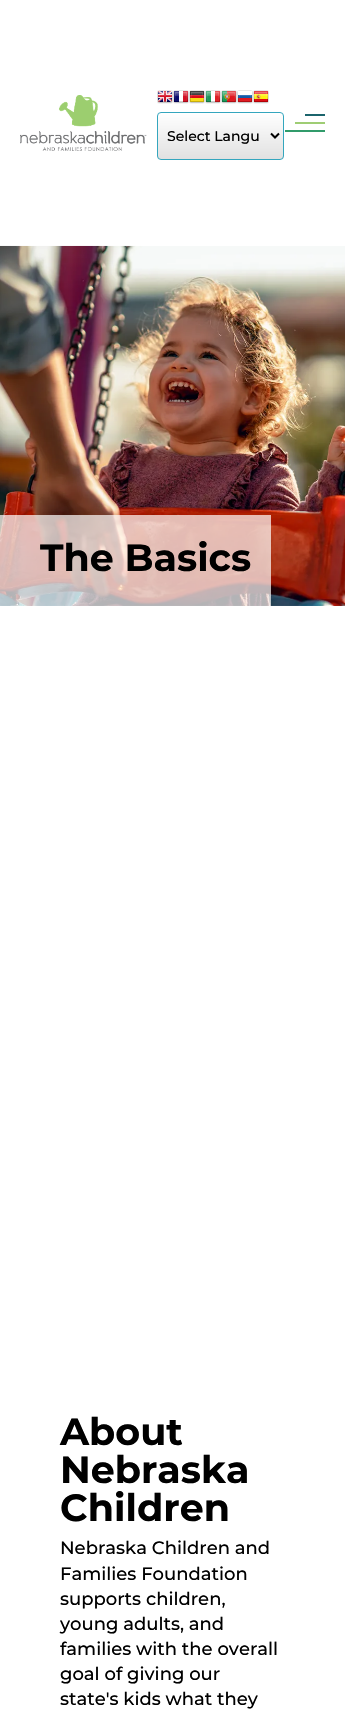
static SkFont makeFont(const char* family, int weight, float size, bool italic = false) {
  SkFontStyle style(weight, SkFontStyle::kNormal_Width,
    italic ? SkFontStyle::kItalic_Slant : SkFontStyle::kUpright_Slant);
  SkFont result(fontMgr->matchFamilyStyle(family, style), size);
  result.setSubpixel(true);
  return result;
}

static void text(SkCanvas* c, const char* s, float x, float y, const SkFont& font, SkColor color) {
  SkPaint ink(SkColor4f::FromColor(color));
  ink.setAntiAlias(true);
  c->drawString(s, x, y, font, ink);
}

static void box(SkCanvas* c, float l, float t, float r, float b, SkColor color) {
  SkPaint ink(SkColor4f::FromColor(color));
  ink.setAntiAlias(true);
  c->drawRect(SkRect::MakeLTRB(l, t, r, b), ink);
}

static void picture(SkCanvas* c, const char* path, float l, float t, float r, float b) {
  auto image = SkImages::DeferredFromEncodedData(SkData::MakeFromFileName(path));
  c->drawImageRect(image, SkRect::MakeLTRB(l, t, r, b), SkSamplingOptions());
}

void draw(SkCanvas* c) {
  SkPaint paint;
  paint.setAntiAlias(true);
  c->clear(0xffffffff);
  picture(c, "img_01.png", 20, 95, 147, 151);
  box(c, 295, 122, 325, 124, 0xff9fcd74);
  box(c, 305, 114, 325, 116, 0xff1b646c);
  box(c, 285, 130, 325, 132, 0xff319b6b);
  picture(c, "img_02.png", 157, 90, 173, 104);
  picture(c, "img_03.png", 173, 90, 189, 104);
  picture(c, "img_04.png", 189, 90, 205, 104);
  picture(c, "img_05.png", 205, 90, 221, 104);
  picture(c, "img_06.png", 221, 90, 237, 104);
  picture(c, "img_07.png", 237, 90, 253, 104);
  picture(c, "img_08.png", 253, 90, 269, 104);
  c->save();
  c->clipPath(SkPathBuilder().moveTo(161, 112).lineTo(280, 112).cubicTo(282, 112, 284, 114, 284, 116).lineTo(284, 156).cubicTo(284, 158, 282, 160, 280, 160).lineTo(161, 160).cubicTo(159, 160, 157, 158, 157, 156).lineTo(157, 116).cubicTo(157, 114, 159, 112, 161, 112).close().detach(), true);
  {
    const SkColor colors[] = {0xffffffff, 0xffe1e1e1};
    const float stops[] = {0, 1};
    const SkPoint ends[] = {{221, 113}, {221, 159}};
    paint.setShader(SkGradientShader::MakeLinear(ends, colors, stops, 2, SkTileMode::kClamp));
    paint.setAlpha(255);
  }
  c->drawRect(SkRect::MakeLTRB(157, 113, 284, 159), paint);
  c->restore();
  paint.setStyle(SkPaint::kStroke_Style);
  paint.setStrokeWidth(1);
  paint.setShader(nullptr);
  paint.setColor(0xff34a6be);
  c->drawRoundRect(SkRect::MakeLTRB(157.5f, 112.5f, 283.5f, 159.5f), 3.5f, 3.5f, paint);
  paint.setStrokeWidth(2);
  paint.setColor(0xff000000);
  c->drawPath(SkPathBuilder().moveTo(271, 133.5f).lineTo(275, 137.5f).lineTo(279, 133.5f).detach(), paint);
  SkFont face1 = makeFont("Montserrat", 500, 14);
  text(c, "Select Langu", 167, 141, face1, 0xff000000);
  picture(c, "img_09.png", 0, 245, 345, 606);
  box(c, 0, 515, 271, 606, 0xb3ffffff);
  SkFont face2 = makeFont("Montserrat", 700, 38);
  text(c, "The Basics", 40, 571, face2, 0xff000000);
  text(c, "About", 60, 1445, face2, 0xff000000);
  text(c, "Nebraska", 60, 1483, face2, 0xff000000);
  text(c, "Children", 60, 1521, face2, 0xff000000);
  SkFont face3 = makeFont("Montserrat", 500, 18);
  text(c, "Nebraska Children and", 60, 1554, face3, 0xff000000);
  text(c, "Families Foundation", 60, 1580, face3, 0xff000000);
  text(c, "supports children,", 60, 1605, face3, 0xff000000);
  text(c, "young adults, and", 60, 1630, face3, 0xff000000);
  text(c, "families with the overall", 60, 1655, face3, 0xff000000);
  text(c, "goal of giving our", 60, 1680, face3, 0xff000000);
  text(c, "state's kids what they", 60, 1705, face3, 0xff000000);
}
